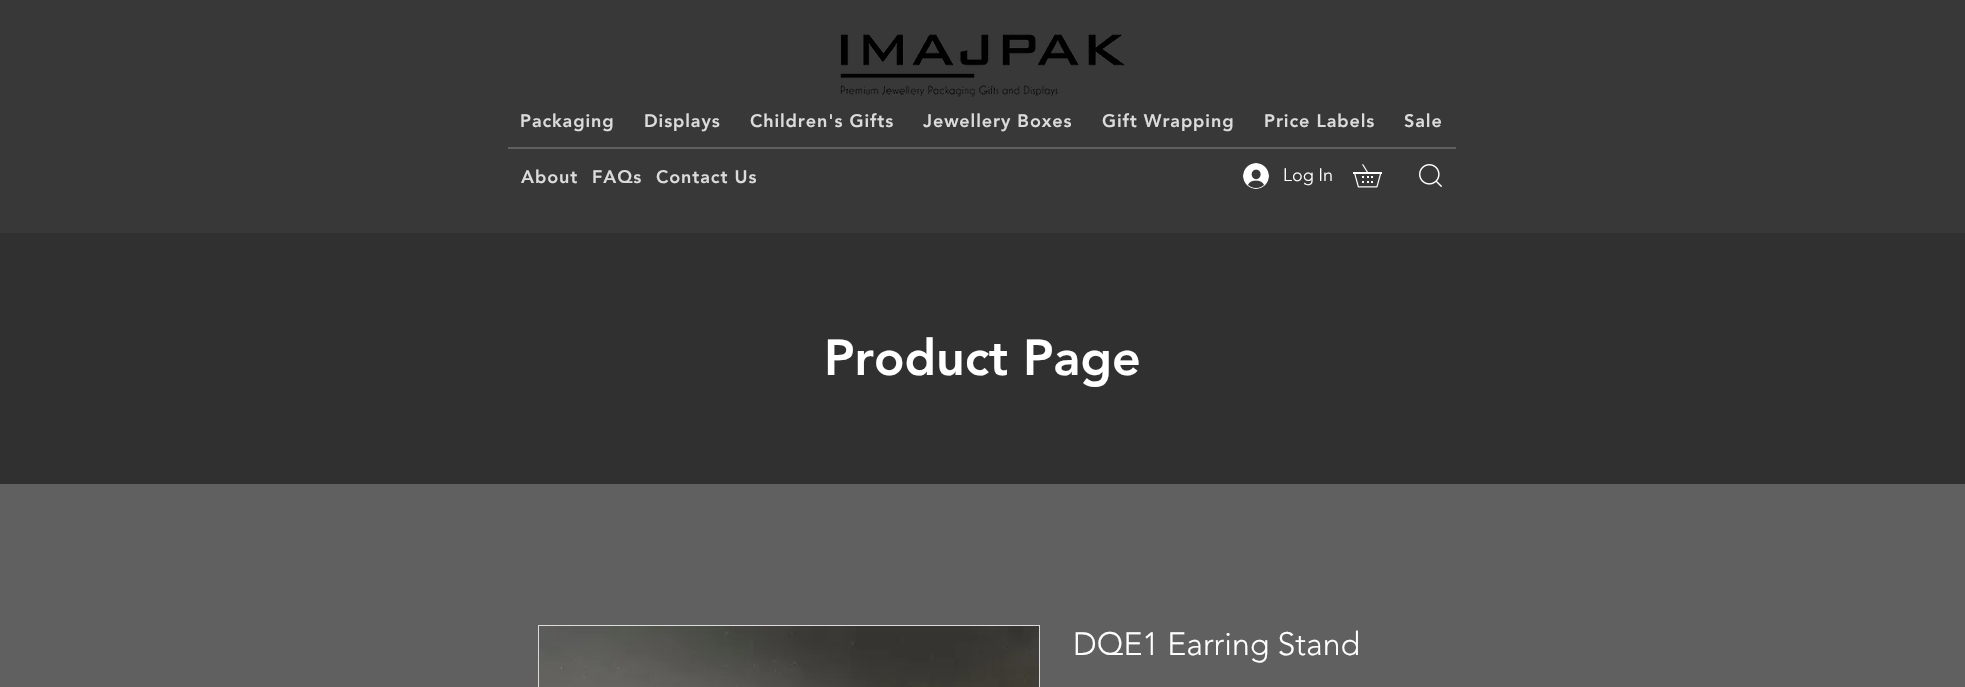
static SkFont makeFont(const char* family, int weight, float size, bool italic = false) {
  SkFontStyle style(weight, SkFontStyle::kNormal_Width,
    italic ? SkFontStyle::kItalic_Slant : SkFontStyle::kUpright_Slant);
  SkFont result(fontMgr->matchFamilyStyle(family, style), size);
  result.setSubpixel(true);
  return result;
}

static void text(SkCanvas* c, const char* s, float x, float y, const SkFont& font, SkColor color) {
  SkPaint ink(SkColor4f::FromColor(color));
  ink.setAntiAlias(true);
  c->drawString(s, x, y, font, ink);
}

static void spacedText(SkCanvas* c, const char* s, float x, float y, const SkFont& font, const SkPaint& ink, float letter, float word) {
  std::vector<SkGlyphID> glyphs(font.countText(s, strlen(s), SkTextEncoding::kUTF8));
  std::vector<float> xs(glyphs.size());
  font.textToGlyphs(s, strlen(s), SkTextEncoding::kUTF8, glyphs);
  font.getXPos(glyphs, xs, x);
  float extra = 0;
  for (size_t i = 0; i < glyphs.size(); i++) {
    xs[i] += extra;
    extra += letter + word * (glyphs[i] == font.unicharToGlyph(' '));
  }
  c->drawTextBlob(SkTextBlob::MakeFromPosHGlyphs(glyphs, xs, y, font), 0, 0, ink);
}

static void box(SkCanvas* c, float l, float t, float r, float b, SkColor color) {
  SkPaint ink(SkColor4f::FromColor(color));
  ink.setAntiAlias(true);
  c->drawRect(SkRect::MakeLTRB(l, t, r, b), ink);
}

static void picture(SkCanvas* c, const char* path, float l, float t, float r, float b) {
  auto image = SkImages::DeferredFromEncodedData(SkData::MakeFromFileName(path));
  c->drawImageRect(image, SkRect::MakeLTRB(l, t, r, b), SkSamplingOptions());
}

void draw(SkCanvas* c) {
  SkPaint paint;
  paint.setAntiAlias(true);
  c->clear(0xff606060);
  box(c, 0, 0, 1965, 233, 0xff383838);
  picture(c, "img_01.png", 840, 34, 1126, 97);
  SkFont face1 = makeFont("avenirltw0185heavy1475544", 900, 18);
  paint.setColor(0xffdbdbdb);
  spacedText(c, "Packaging", 520, 127, face1, paint, 0.9f, 0);
  spacedText(c, "Displays", 644, 127, face1, paint, 0.9f, 0);
  spacedText(c, "Children's Gifts", 750, 127, face1, paint, 0.9f, 0);
  spacedText(c, "Jewellery Boxes", 923, 127, face1, paint, 0.9f, 0);
  spacedText(c, "Gift Wrapping", 1102, 127, face1, paint, 0.9f, 0);
  spacedText(c, "Price Labels", 1264, 127, face1, paint, 0.9f, 0);
  spacedText(c, "Sale", 1404, 127, face1, paint, 0.9f, 0);
  box(c, 508, 147, 1456, 149, 0xff606060);
  spacedText(c, "About", 521, 183, face1, paint, 0.9f, 0);
  spacedText(c, "FAQs", 592, 183, face1, paint, 0.9f, 0);
  spacedText(c, "Contact Us", 656, 183, face1, paint, 0.9f, 0);
  picture(c, "img_02.png", 1243, 163, 1269, 189);
  SkFont face2 = makeFont("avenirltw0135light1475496", 300, 18);
  text(c, "Log In", 1283, 181, face2, 0xffffffff);
  picture(c, "img_03.png", 1353, 164, 1382, 188);
  picture(c, "img_04.png", 1419, 164, 1442, 187);
  box(c, 0, 233, 1965, 484, 0xff303030);
  SkFont face3 = makeFont("avenirltw0185heavy1475544", 900, 50);
  text(c, "Product Page", 824, 375, face3, 0xffffffff);
  paint.setStyle(SkPaint::kStroke_Style);
  paint.setStrokeWidth(1);
  c->drawRect(SkRect::MakeLTRB(538.5f, 625.5f, 1039.5f, 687.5f), paint);
  picture(c, "img_05.png", 539, 626, 1039, 687);
  SkFont face4 = makeFont("avenirltw0135light1475496", 300, 32);
  text(c, "DQE1 Earring Stand", 1073, 655, face4, 0xffffffff);
}
